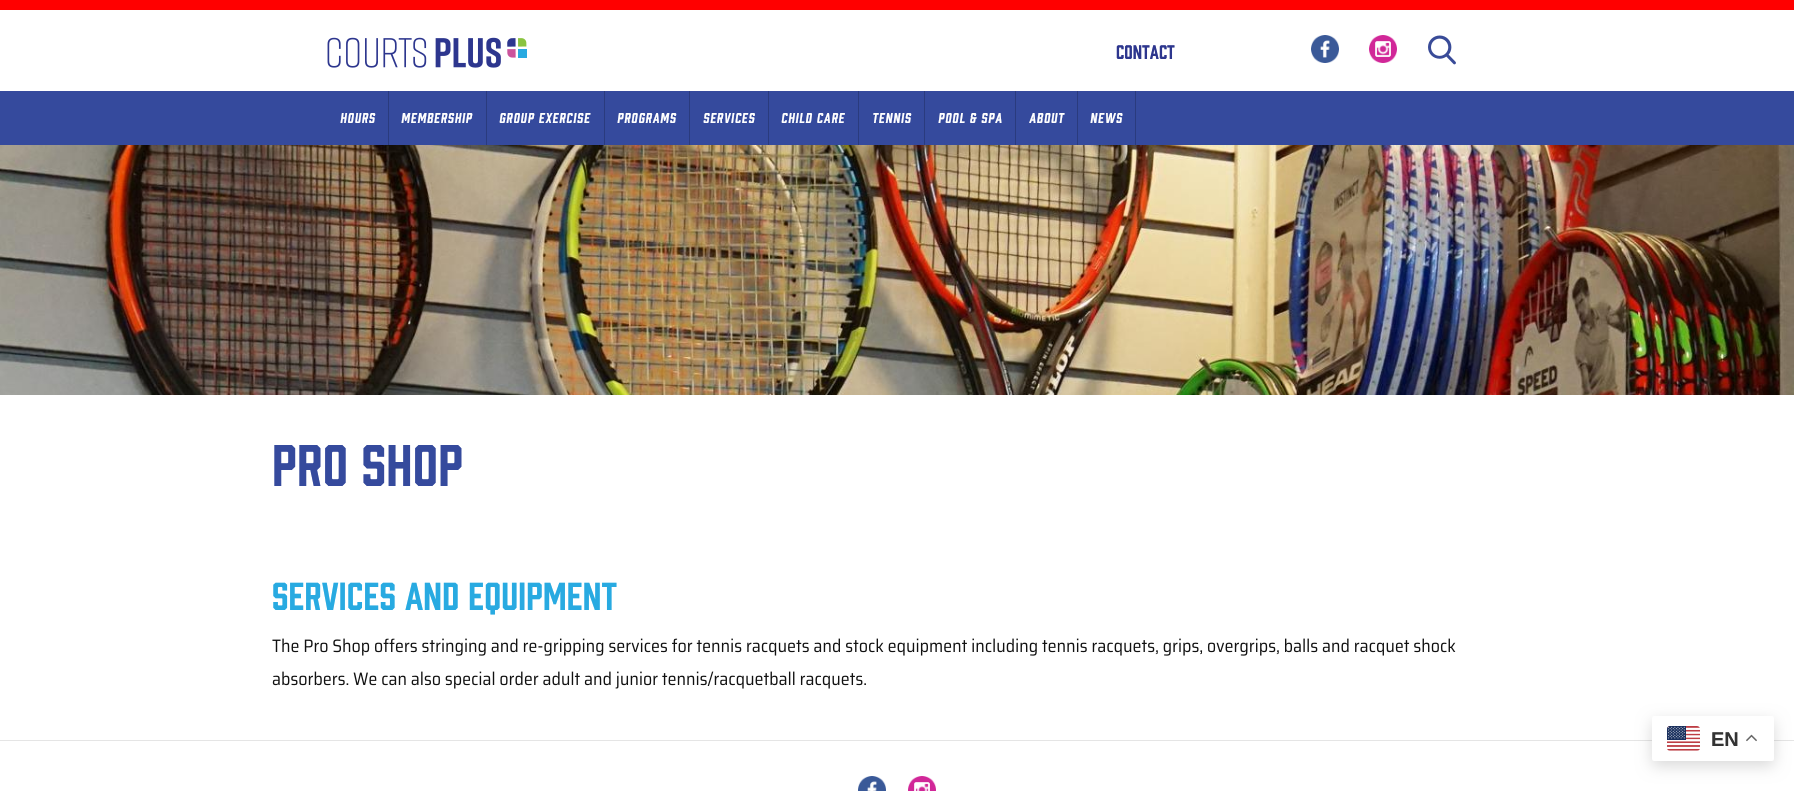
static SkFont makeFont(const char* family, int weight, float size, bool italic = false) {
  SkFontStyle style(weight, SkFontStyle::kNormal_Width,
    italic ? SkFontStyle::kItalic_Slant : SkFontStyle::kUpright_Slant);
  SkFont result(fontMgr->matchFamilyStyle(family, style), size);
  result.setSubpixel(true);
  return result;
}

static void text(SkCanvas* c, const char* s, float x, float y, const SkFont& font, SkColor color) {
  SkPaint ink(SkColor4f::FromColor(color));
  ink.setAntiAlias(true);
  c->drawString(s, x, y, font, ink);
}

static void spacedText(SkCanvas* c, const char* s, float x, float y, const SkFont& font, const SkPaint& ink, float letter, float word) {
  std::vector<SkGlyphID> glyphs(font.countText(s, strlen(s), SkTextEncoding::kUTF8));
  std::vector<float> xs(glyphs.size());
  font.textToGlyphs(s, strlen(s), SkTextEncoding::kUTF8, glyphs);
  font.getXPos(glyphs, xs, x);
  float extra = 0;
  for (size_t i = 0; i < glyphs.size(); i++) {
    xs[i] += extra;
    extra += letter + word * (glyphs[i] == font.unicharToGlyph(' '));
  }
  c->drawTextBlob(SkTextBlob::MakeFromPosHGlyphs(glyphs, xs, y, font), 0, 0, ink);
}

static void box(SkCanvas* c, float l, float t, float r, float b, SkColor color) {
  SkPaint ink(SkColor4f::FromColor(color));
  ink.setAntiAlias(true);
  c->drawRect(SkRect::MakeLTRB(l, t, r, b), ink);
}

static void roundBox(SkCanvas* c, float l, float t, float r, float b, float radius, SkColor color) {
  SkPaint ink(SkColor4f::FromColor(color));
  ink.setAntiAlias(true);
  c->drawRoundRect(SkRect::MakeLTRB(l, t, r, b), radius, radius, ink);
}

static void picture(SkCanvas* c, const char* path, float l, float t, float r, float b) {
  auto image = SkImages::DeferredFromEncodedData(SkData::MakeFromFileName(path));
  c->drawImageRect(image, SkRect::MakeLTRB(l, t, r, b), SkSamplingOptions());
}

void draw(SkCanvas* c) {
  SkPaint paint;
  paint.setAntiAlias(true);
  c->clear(0xffffffff);
  box(c, 0, 0, 1794, 10, 0xffff0000);
  picture(c, "img_01.png", 327, 37, 527, 68);
  SkFont face1 = makeFont("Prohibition", 400, 18);
  text(c, "Contact", 1116, 59, face1, 0xff2d368e);
  picture(c, "img_02.png", 1311, 35, 1339, 63);
  picture(c, "img_03.png", 1369, 35, 1397, 63);
  picture(c, "img_04.png", 1428, 35, 1456, 65);
  box(c, 0, 91, 1794, 145, 0xff354a9d);
  box(c, 388, 91, 389, 145, 0xff2a3b7e);
  SkFont face2 = makeFont("Prohibition", 400, 13, true);
  paint.setColor(0xffffffff);
  spacedText(c, "HOURS", 340, 123, face2, paint, 1, 0);
  box(c, 486, 91, 487, 145, 0xff2a3b7e);
  spacedText(c, "MEMBERSHIP", 401, 123, face2, paint, 1, 0);
  box(c, 604, 91, 605, 145, 0xff2a3b7e);
  spacedText(c, "GROUP EXERCISE", 499, 123, face2, paint, 1, 0);
  box(c, 689, 91, 690, 145, 0xff2a3b7e);
  spacedText(c, "PROGRAMS", 617, 123, face2, paint, 1, 0);
  box(c, 768, 91, 769, 145, 0xff2a3b7e);
  spacedText(c, "SERVICES", 703, 123, face2, paint, 1, 0);
  box(c, 858, 91, 859, 145, 0xff2a3b7e);
  spacedText(c, "CHILD CARE", 781, 123, face2, paint, 1, 0);
  box(c, 924, 91, 925, 145, 0xff2a3b7e);
  spacedText(c, "TENNIS", 872, 123, face2, paint, 1, 0);
  box(c, 1015, 91, 1016, 145, 0xff2a3b7e);
  spacedText(c, "POOL & SPA", 938, 123, face2, paint, 1, 0);
  box(c, 1077, 91, 1078, 145, 0xff2a3b7e);
  spacedText(c, "ABOUT", 1029, 123, face2, paint, 1, 0);
  box(c, 1135, 91, 1136, 145, 0xff2a3b7e);
  spacedText(c, "NEWS", 1090, 123, face2, paint, 1, 0);
  picture(c, "img_05.png", 0, 145, 1794, 395);
  SkFont face3 = makeFont("Prohibition", 400, 54);
  paint.setColor(0xff354a9d);
  spacedText(c, "Pro Shop", 272, 486, face3, paint, 0.25f, 0);
  SkFont face4 = makeFont("Prohibition", 400, 36);
  paint.setColor(0xff28aae1);
  spacedText(c, "Services and Equipment", 272, 610, face4, paint, 0.2f, 0);
  picture(c, "img_06.png", 272, 638, 1456, 656);
  picture(c, "img_07.png", 272, 671, 866, 689);
  box(c, 0, 740, 1794, 741, 0xffe5e5e5);
  paint.setColor(0x26000000);
  paint.setMaskFilter(SkMaskFilter::MakeBlur(kNormal_SkBlurStyle, 7.5f));
  c->drawRoundRect(SkRect::MakeLTRB(1652, 721, 1774, 766), 2, 2, paint);
  paint.setMaskFilter(nullptr);
  roundBox(c, 1652, 716, 1774, 761, 2, 0xffffffff);
  picture(c, "img_08.png", 1667, 726, 1700, 751);
  SkFont face5 = makeFont("Liberation Sans", 700, 20);
  text(c, "EN", 1711, 746, face5, 0xff333333);
  picture(c, "img_09.png", 1746, 734, 1757, 742);
  picture(c, "img_10.png", 858, 776, 886, 791);
  picture(c, "img_11.png", 908, 776, 936, 791);
}
